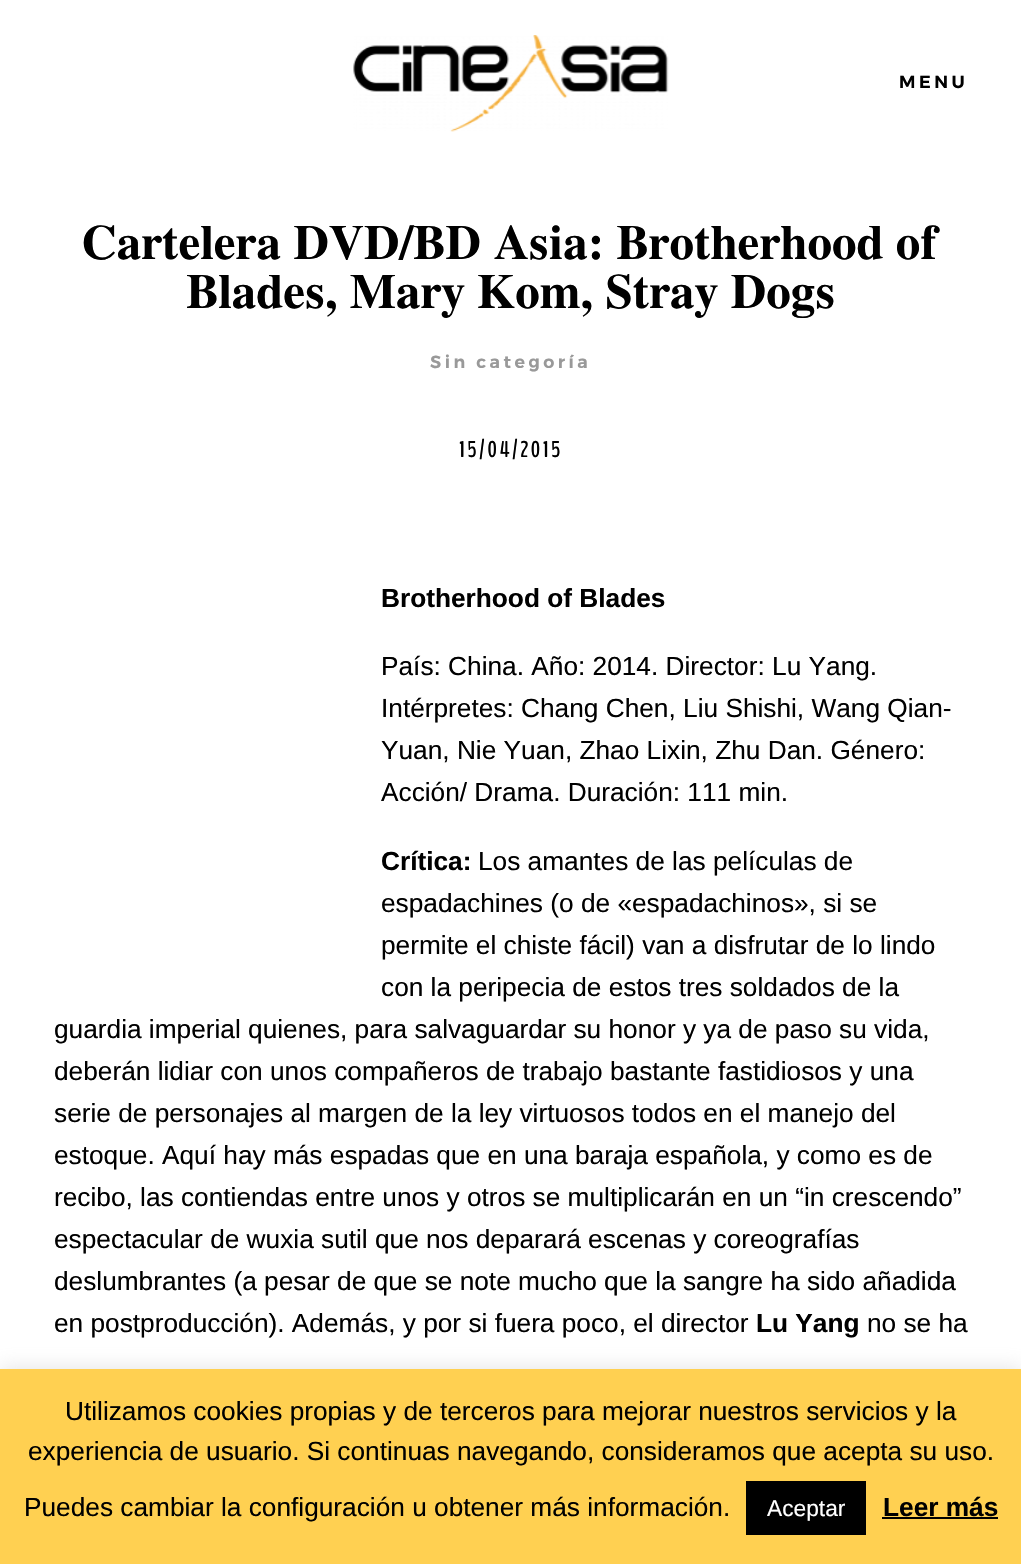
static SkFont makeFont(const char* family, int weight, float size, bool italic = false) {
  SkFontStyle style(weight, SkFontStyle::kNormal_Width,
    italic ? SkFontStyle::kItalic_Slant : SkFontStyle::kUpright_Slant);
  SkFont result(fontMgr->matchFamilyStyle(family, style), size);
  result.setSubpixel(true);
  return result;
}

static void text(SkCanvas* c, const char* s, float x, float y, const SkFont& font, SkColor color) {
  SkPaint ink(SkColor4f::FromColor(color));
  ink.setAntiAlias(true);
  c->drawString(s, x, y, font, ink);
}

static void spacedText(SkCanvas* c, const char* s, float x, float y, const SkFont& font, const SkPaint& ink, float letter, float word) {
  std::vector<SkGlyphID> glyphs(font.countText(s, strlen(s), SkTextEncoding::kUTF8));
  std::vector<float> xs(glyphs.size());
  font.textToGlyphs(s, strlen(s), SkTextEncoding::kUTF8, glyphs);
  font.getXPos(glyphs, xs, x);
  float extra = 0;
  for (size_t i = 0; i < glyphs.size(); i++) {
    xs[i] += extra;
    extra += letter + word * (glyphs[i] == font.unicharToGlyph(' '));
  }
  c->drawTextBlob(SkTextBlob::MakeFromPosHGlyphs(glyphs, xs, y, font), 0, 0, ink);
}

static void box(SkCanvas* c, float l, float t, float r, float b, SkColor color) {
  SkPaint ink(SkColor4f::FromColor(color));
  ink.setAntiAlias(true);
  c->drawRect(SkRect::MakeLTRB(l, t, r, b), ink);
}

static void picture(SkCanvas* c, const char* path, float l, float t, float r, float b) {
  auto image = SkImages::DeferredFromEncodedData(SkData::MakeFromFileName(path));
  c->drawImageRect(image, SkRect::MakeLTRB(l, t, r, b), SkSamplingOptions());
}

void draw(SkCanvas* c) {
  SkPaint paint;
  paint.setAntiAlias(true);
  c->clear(0xffffffff);
  picture(c, "img_01.png", 353, 35, 669, 132);
  SkFont face1 = makeFont("Montserrat", 600, 17.5f);
  paint.setColor(0xff000000);
  spacedText(c, "MENU", 899, 88, face1, paint, 3.5f, 0);
  SkFont face2 = makeFont("FreeSerif", 700, 49);
  text(c, "Cartelera DVD/BD Asia: Brotherhood of", 82, 259, face2, 0xff000000);
  text(c, "Blades, Mary Kom, Stray Dogs", 186, 308, face2, 0xff000000);
  paint.setColor(0xff999999);
  spacedText(c, "Sin categoría", 430, 368, face1, paint, 3.5f, 0);
  SkFont face3 = makeFont("BenchNine", 700, 22.75f);
  paint.setColor(0xff000000);
  spacedText(c, "15/04/2015", 459, 457, face3, paint, 2.25f, 0);
  SkFont face4 = makeFont("Liberation Sans", 700, 26.25f);
  text(c, "Brotherhood of Blades", 381, 607, face4, 0xff000000);
  SkFont face5 = makeFont("Liberation Sans", 400, 26.25f);
  text(c, "País: China. Año: 2014. Director: Lu Yang.", 381, 675, face5, 0xff000000);
  text(c, "Intérpretes: Chang Chen, Liu Shishi, Wang Qian-", 381, 717, face5, 0xff000000);
  text(c, "Yuan, Nie Yuan, Zhao Lixin, Zhu Dan. Género:", 381, 759, face5, 0xff000000);
  text(c, "Acción/ Drama. Duración: 111 min.", 381, 801, face5, 0xff000000);
  text(c, "Crítica:", 381, 870, face4, 0xff000000);
  text(c, "Los amantes de las películas de", 478, 870, face5, 0xff000000);
  text(c, "espadachines (o de «espadachinos», si se", 381, 912, face5, 0xff000000);
  text(c, "permite el chiste fácil) van a disfrutar de lo lindo", 381, 954, face5, 0xff000000);
  text(c, "con la peripecia de estos tres soldados de la", 381, 996, face5, 0xff000000);
  text(c, "guardia imperial quienes, para salvaguardar su honor y ya de paso su vida,", 54, 1038, face5, 0xff000000);
  text(c, "deberán lidiar con unos compañeros de trabajo bastante fastidiosos y una", 54, 1080, face5, 0xff000000);
  text(c, "serie de personajes al margen de la ley virtuosos todos en el manejo del", 54, 1122, face5, 0xff000000);
  text(c, "estoque. Aquí hay más espadas que en una baraja española, y como es de", 54, 1164, face5, 0xff000000);
  text(c, "recibo, las contiendas entre unos y otros se multiplicarán en un “in crescendo”", 54, 1206, face5, 0xff000000);
  text(c, "espectacular de wuxia sutil que nos deparará escenas y coreografías", 54, 1248, face5, 0xff000000);
  text(c, "deslumbrantes (a pesar de que se note mucho que la sangre ha sido añadida", 54, 1290, face5, 0xff000000);
  text(c, "en postproducción). Además, y por si fuera poco, el director", 54, 1332, face5, 0xff000000);
  text(c, "Lu Yang", 756, 1332, face4, 0xff000000);
  text(c, "no se ha", 867, 1332, face5, 0xff000000);
  paint.setColor(0x4dacabab);
  paint.setMaskFilter(SkMaskFilter::MakeBlur(kNormal_SkBlurStyle, 9));
  c->drawRect(SkRect::MakeLTRB(0, 1367, 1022, 1563), paint);
  paint.setMaskFilter(nullptr);
  box(c, 0, 1369, 1021, 1564, 0xffffd051);
  text(c, "Utilizamos cookies propias y de terceros para mejorar nuestros servicios y la", 65, 1420, face5, 0xff000000);
  text(c, "experiencia de usuario. Si continuas navegando, consideramos que acepta su uso.", 28, 1460, face5, 0xff000000);
  text(c, "Puedes cambiar la configuración u obtener más información.", 24, 1516, face5, 0xff000000);
  box(c, 746, 1481, 866, 1535, 0xff000000);
  SkFont face6 = makeFont("Liberation Sans", 400, 22.75f);
  text(c, "Aceptar", 767, 1516, face6, 0xffffffff);
  text(c, "Leer más", 883, 1516, face4, 0xff000000);
  box(c, 882, 1517, 998, 1519, 0xff000000);
}
